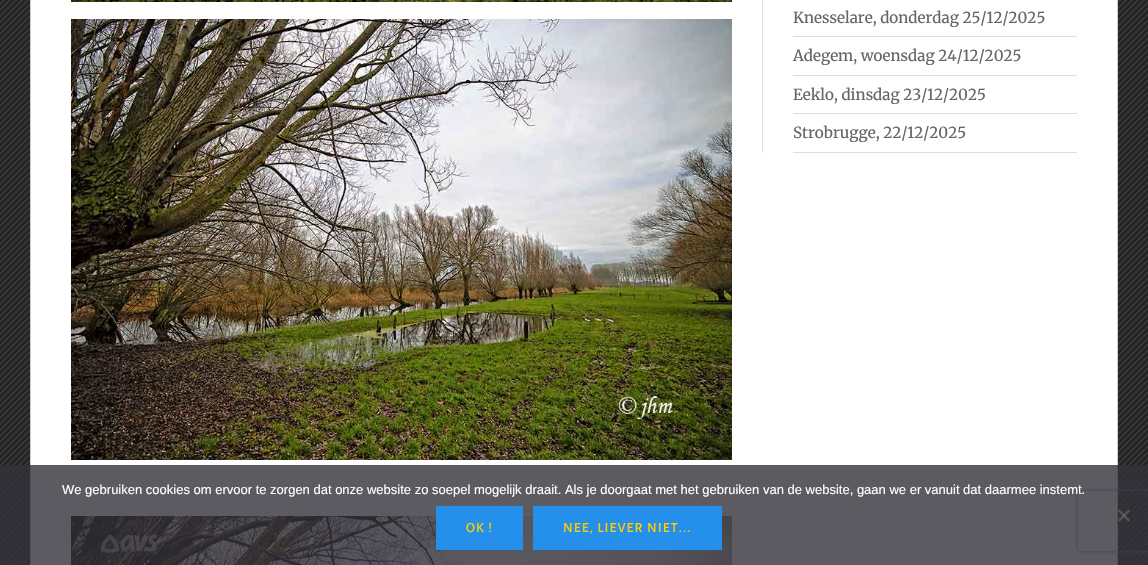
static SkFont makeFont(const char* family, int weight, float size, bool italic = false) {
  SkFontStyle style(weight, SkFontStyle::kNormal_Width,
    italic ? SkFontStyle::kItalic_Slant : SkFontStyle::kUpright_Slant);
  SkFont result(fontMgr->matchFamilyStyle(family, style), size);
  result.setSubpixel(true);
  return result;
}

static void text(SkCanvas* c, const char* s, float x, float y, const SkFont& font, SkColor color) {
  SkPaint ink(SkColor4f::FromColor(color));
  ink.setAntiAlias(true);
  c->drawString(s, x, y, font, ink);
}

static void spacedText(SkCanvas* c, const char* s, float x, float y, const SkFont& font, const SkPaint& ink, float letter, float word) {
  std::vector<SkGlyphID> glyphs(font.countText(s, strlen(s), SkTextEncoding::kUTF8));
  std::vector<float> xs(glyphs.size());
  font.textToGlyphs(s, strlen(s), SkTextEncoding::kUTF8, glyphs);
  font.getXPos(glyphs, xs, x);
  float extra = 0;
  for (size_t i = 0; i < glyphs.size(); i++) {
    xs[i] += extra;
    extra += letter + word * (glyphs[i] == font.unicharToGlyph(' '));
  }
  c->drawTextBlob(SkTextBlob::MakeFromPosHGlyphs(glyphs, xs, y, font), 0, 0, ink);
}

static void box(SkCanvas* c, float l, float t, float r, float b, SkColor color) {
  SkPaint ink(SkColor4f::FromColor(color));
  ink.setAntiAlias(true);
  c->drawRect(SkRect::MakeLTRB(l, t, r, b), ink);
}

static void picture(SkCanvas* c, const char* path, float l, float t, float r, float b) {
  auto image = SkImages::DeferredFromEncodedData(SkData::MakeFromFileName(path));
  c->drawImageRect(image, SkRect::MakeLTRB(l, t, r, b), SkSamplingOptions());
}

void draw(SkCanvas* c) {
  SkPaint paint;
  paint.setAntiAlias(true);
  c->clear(0xff1f1f1f);
  picture(c, "img_01.png", 0, 0, 1148, 565);
  paint.setColor(0xffffffff);
  c->drawRect(SkRect::MakeLTRB(30.5f, -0.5f, 1117.5f, 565.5f), paint);
  paint.setStyle(SkPaint::kStroke_Style);
  paint.setStrokeWidth(1);
  paint.setColor(0xffcccccc);
  c->drawRect(SkRect::MakeLTRB(30.5f, -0.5f, 1117.5f, 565.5f), paint);
  picture(c, "img_02.png", 71, 0, 732, 2);
  picture(c, "img_03.png", 71, 19, 732, 460);
  picture(c, "img_04.png", 71, 516, 732, 565);
  box(c, 762, 0, 763, 153, 0xffe1e1e1);
  box(c, 793, 152, 1077, 153, 0xffdddddd);
  SkFont face1 = makeFont("Merriweather", 400, 15.25f);
  text(c, "Knesselare, donderdag 25/12/2025", 793, 23, face1, 0xff666666);
  box(c, 793, 36, 1077, 37, 0xffdddddd);
  text(c, "Adegem, woensdag 24/12/2025", 793, 61, face1, 0xff666666);
  box(c, 793, 75, 1077, 76, 0xffdddddd);
  text(c, "Eeklo, dinsdag 23/12/2025", 793, 100, face1, 0xff666666);
  box(c, 793, 113, 1077, 114, 0xffdddddd);
  text(c, "Strobrugge, 22/12/2025", 793, 138, face1, 0xff666666);
  c->save();
  c->clipPath(SkPathBuilder(SkPathFillType::kEvenOdd).moveTo(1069, 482).lineTo(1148, 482).lineTo(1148, 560).lineTo(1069, 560).close().moveTo(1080, 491).lineTo(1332, 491).cubicTo(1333, 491, 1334, 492, 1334, 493).lineTo(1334, 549).cubicTo(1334, 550, 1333, 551, 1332, 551).lineTo(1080, 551).cubicTo(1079, 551, 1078, 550, 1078, 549).lineTo(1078, 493).cubicTo(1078, 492, 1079, 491, 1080, 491).close().detach(), true);
  paint.setStyle(SkPaint::kFill_Style);
  paint.setColor(0xff808080);
  paint.setMaskFilter(SkMaskFilter::MakeBlur(kNormal_SkBlurStyle, 2.5f));
  c->drawRoundRect(SkRect::MakeLTRB(1078, 491, 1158, 551), 2, 2, paint);
  paint.setMaskFilter(nullptr);
  c->restore();
  box(c, 0, 465, 1148, 565, 0xcc32323a);
  SkFont face2 = makeFont("Liberation Sans", 400, 13);
  text(c, "We gebruiken cookies om ervoor te zorgen dat onze website zo soepel mogelijk draait. Als je doorgaat met het gebruiken van de website, gaan we er vanuit dat daarmee instemt.", 62, 494, face2, 0xffffffff);
  paint.setColor(0xff57575b);
  c->drawPath(SkPathBuilder().moveTo(1128.5f, 509.5f).lineTo(1130, 511).lineTo(1119.5f, 521.5f).lineTo(1118, 520).close().detach(), paint);
  paint.setColor(0x80808080);
  c->drawPath(SkPathBuilder().moveTo(1118, 511).lineTo(1119.5f, 509.5f).lineTo(1130, 520).lineTo(1128.5f, 521.5f).close().detach(), paint);
  box(c, 436, 506, 523, 550, 0xff2590ec);
  SkFont face3 = makeFont("Alegreya Sans", 500, 14);
  paint.setColor(0xffffcc00);
  spacedText(c, "OK !", 466, 532, face3, paint, 1.1f, 0);
  box(c, 533, 506, 722, 550, 0xff2590ec);
  spacedText(c, "NEE, LIEVER NIET...", 563, 532, face3, paint, 1.1f, 0);
}
